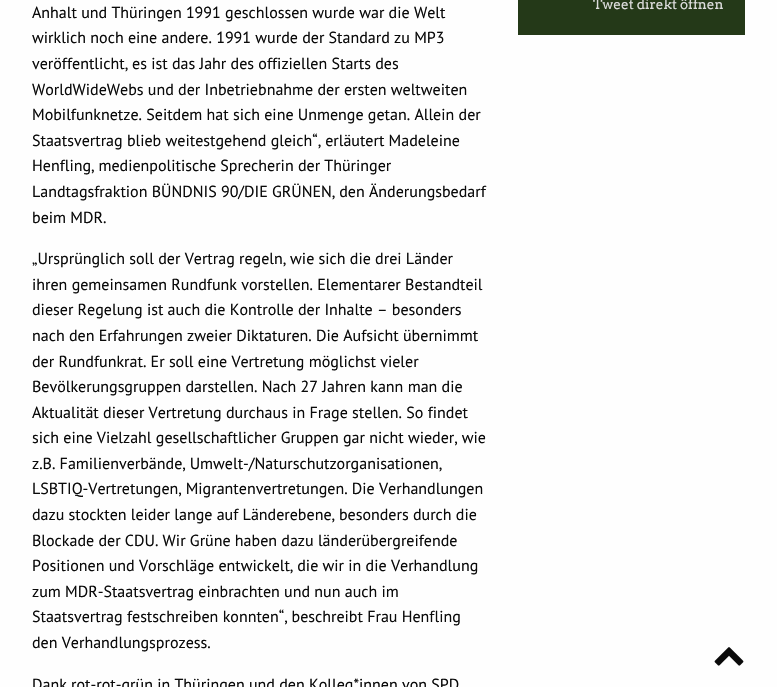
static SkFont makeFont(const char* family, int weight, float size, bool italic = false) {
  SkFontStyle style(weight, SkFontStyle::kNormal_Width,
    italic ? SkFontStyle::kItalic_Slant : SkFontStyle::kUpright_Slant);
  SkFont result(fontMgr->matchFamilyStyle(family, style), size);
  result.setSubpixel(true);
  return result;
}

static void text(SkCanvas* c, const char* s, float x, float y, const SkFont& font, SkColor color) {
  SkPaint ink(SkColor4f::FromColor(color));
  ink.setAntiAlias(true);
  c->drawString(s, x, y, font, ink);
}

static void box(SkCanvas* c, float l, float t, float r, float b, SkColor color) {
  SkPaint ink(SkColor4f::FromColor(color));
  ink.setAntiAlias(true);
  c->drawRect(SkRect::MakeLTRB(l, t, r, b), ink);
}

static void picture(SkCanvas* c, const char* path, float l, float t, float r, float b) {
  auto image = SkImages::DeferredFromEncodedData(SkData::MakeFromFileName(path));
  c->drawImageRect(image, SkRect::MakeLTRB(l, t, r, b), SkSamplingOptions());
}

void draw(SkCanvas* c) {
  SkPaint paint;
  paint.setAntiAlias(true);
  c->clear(0xfffefefe);
  box(c, 518, 0, 745, 35, 0xff243918);
  SkFont face1 = makeFont("Arvo", 400, 13.5f);
  text(c, "Tweet direkt öffnen", 593, 9, face1, 0xffdddddd);
  SkFont face2 = makeFont("PT Sans", 400, 16);
  text(c, "Anhalt und Thüringen 1991 geschlossen wurde war die Welt", 32, 18, face2, 0xff0a0a0a);
  text(c, "wirklich noch eine andere. 1991 wurde der Standard zu MP3", 32, 43, face2, 0xff0a0a0a);
  text(c, "veröffentlicht, es ist das Jahr des offiziellen Starts des", 32, 69, face2, 0xff0a0a0a);
  text(c, "WorldWideWebs und der Inbetriebnahme der ersten weltweiten", 32, 95, face2, 0xff0a0a0a);
  text(c, "Mobilfunknetze. Seitdem hat sich eine Unmenge getan. Allein der", 32, 120, face2, 0xff0a0a0a);
  text(c, "Staatsvertrag blieb weitestgehend gleich“, erläutert Madeleine", 32, 146, face2, 0xff0a0a0a);
  text(c, "Henfling, medienpolitische Sprecherin der Thüringer", 32, 171, face2, 0xff0a0a0a);
  text(c, "Landtagsfraktion BÜNDNIS 90/DIE GRÜNEN, den Änderungsbedarf", 32, 197, face2, 0xff0a0a0a);
  text(c, "beim MDR.", 32, 223, face2, 0xff0a0a0a);
  text(c, "„Ursprünglich soll der Vertrag regeln, wie sich die drei Länder", 32, 264, face2, 0xff0a0a0a);
  text(c, "ihren gemeinsamen Rundfunk vorstellen. Elementarer Bestandteil", 32, 290, face2, 0xff0a0a0a);
  text(c, "dieser Regelung ist auch die Kontrolle der Inhalte – besonders", 32, 315, face2, 0xff0a0a0a);
  text(c, "nach den Erfahrungen zweier Diktaturen. Die Aufsicht übernimmt", 32, 341, face2, 0xff0a0a0a);
  text(c, "der Rundfunkrat. Er soll eine Vertretung möglichst vieler", 32, 367, face2, 0xff0a0a0a);
  text(c, "Bevölkerungsgruppen darstellen. Nach 27 Jahren kann man die", 32, 392, face2, 0xff0a0a0a);
  text(c, "Aktualität dieser Vertretung durchaus in Frage stellen. So findet", 32, 418, face2, 0xff0a0a0a);
  text(c, "sich eine Vielzahl gesellschaftlicher Gruppen gar nicht wieder, wie", 32, 443, face2, 0xff0a0a0a);
  text(c, "z.B. Familienverbände, Umwelt-/Naturschutzorganisationen,", 32, 469, face2, 0xff0a0a0a);
  text(c, "LSBTIQ-Vertretungen, Migrantenvertretungen. Die Verhandlungen", 32, 494, face2, 0xff0a0a0a);
  text(c, "dazu stockten leider lange auf Länderebene, besonders durch die", 32, 520, face2, 0xff0a0a0a);
  text(c, "Blockade der CDU. Wir Grüne haben dazu länderübergreifende", 32, 546, face2, 0xff0a0a0a);
  text(c, "Positionen und Vorschläge entwickelt, die wir in die Verhandlung", 32, 571, face2, 0xff0a0a0a);
  text(c, "zum MDR-Staatsvertrag einbrachten und nun auch im", 32, 597, face2, 0xff0a0a0a);
  text(c, "Staatsvertrag festschreiben konnten“, beschreibt Frau Henfling", 32, 622, face2, 0xff0a0a0a);
  text(c, "den Verhandlungsprozess.", 32, 648, face2, 0xff0a0a0a);
  text(c, "Dank rot-rot-grün in Thüringen und den Kolleg*innen von SPD", 32, 690, face2, 0xff0a0a0a);
  picture(c, "img_01.png", 714, 647, 744, 666);
}
